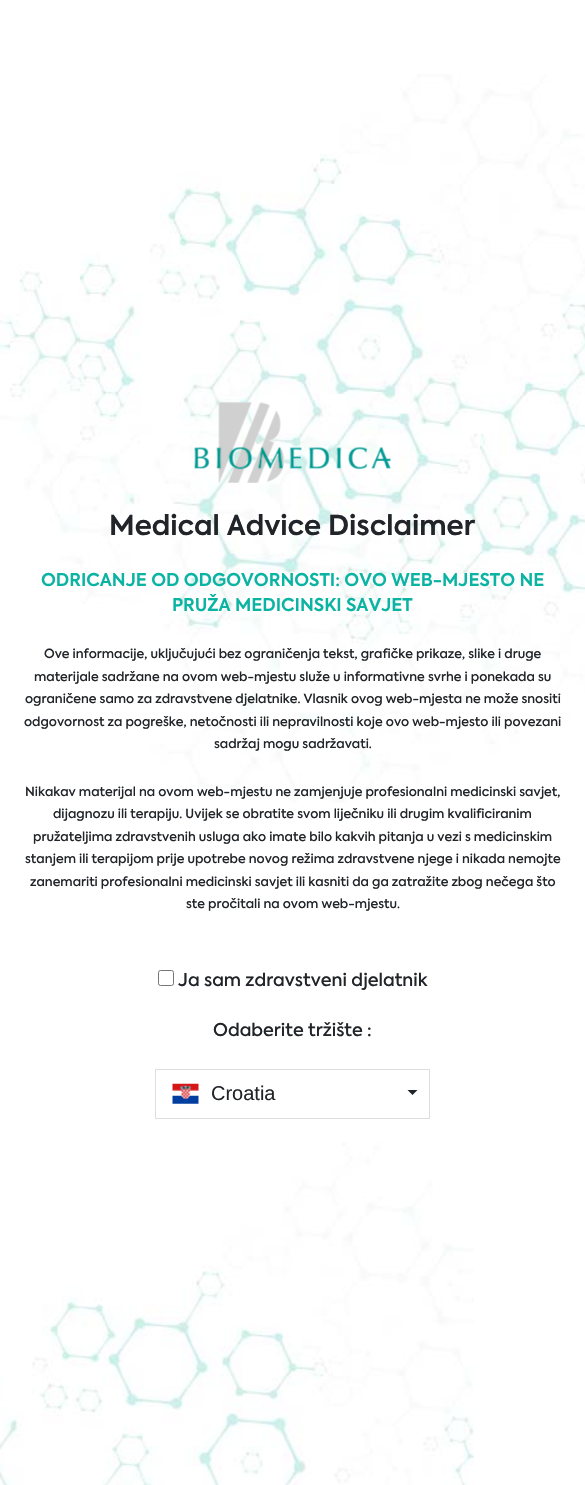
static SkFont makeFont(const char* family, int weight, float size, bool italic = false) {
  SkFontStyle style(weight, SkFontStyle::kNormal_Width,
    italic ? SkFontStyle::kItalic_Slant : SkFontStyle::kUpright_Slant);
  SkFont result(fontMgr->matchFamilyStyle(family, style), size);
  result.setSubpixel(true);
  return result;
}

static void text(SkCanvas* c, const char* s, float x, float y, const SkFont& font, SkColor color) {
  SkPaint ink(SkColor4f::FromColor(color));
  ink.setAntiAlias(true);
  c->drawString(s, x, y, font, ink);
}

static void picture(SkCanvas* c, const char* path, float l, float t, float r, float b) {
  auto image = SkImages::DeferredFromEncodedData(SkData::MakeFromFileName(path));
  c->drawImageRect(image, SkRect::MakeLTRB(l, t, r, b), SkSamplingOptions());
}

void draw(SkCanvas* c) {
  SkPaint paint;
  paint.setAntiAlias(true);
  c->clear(0xffffffff);
  picture(c, "img_01.png", 0, 74, 585, 803);
  picture(c, "img_02.png", 194, 402, 391, 483);
  SkFont face1 = makeFont("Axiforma", 600, 27.5f);
  text(c, "Medical Advice Disclaimer", 109, 535, face1, 0xff212529);
  SkFont face2 = makeFont("Axiforma", 600, 17.5f);
  text(c, "ODRICANJE OD ODGOVORNOSTI: OVO WEB-MJESTO NE", 41, 586, face2, 0xff0bb3a2);
  text(c, "PRUŽA MEDICINSKI SAVJET", 172, 611, face2, 0xff0bb3a2);
  SkFont face3 = makeFont("Axiforma", 500, 12.5f);
  text(c, "Ove informacije, uključujući bez ograničenja tekst, grafičke prikaze, slike i druge", 44, 658, face3, 0xff212529);
  text(c, "materijale sadržane na ovom web-mjestu služe u informativne svrhe i ponekada su", 34, 681, face3, 0xff212529);
  text(c, "ograničene samo za zdravstvene djelatnike. Vlasnik ovog web-mjesta ne može snositi", 25, 703, face3, 0xff212529);
  text(c, "odgovornost za pogreške, netočnosti ili nepravilnosti koje ovo web-mjesto ili povezani", 24, 726, face3, 0xff212529);
  text(c, "sadržaj mogu sadržavati.", 214, 748, face3, 0xff212529);
  text(c, "Nikakav materijal na ovom web-mjestu ne zamjenjuje profesionalni medicinski savjet,", 25, 796, face3, 0xff212529);
  text(c, "dijagnozu ili terapiju. Uvijek se obratite svom liječniku ili drugim kvalificiranim", 53, 818, face3, 0xff212529);
  text(c, "pružateljima zdravstvenih usluga ako imate bilo kakvih pitanja u vezi s medicinskim", 33, 841, face3, 0xff212529);
  text(c, "stanjem ili terapijom prije upotrebe novog režima zdravstvene njege i nikada nemojte", 25, 863, face3, 0xff212529);
  text(c, "zanemariti profesionalni medicinski savjet ili kasniti da ga zatražite zbog nečega što", 30, 886, face3, 0xff212529);
  text(c, "ste pročitali na ovom web-mjestu.", 186, 908, face3, 0xff212529);
  paint.setStyle(SkPaint::kStroke_Style);
  paint.setStrokeWidth(1);
  paint.setColor(0xff767676);
  c->drawRoundRect(SkRect::MakeLTRB(158.5f, 970.5f, 173.5f, 985.5f), 2, 2, paint);
  SkFont face4 = makeFont("Axiforma", 500, 17.5f);
  text(c, "Ja sam zdravstveni djelatnik", 178, 986, face4, 0xff212529);
  text(c, "Odaberite tržište :", 213, 1036, face4, 0xff212529);
  paint.setColor(0xffdedede);
  c->drawRect(SkRect::MakeLTRB(155.5f, 1069.5f, 429.5f, 1118.5f), paint);
  picture(c, "img_03.png", 172, 1083, 199, 1104);
  SkFont face5 = makeFont("Liberation Sans", 400, 20);
  text(c, "Croatia", 211, 1100, face5, 0xff212529);
  paint.setStyle(SkPaint::kFill_Style);
  paint.setColor(0xff212529);
  c->drawPath(SkPathBuilder().moveTo(407.5f, 1090).lineTo(417.5f, 1090).lineTo(412.5f, 1095).close().detach(), paint);
  picture(c, "img_04.png", 0, 1142, 474, 1485);
}
